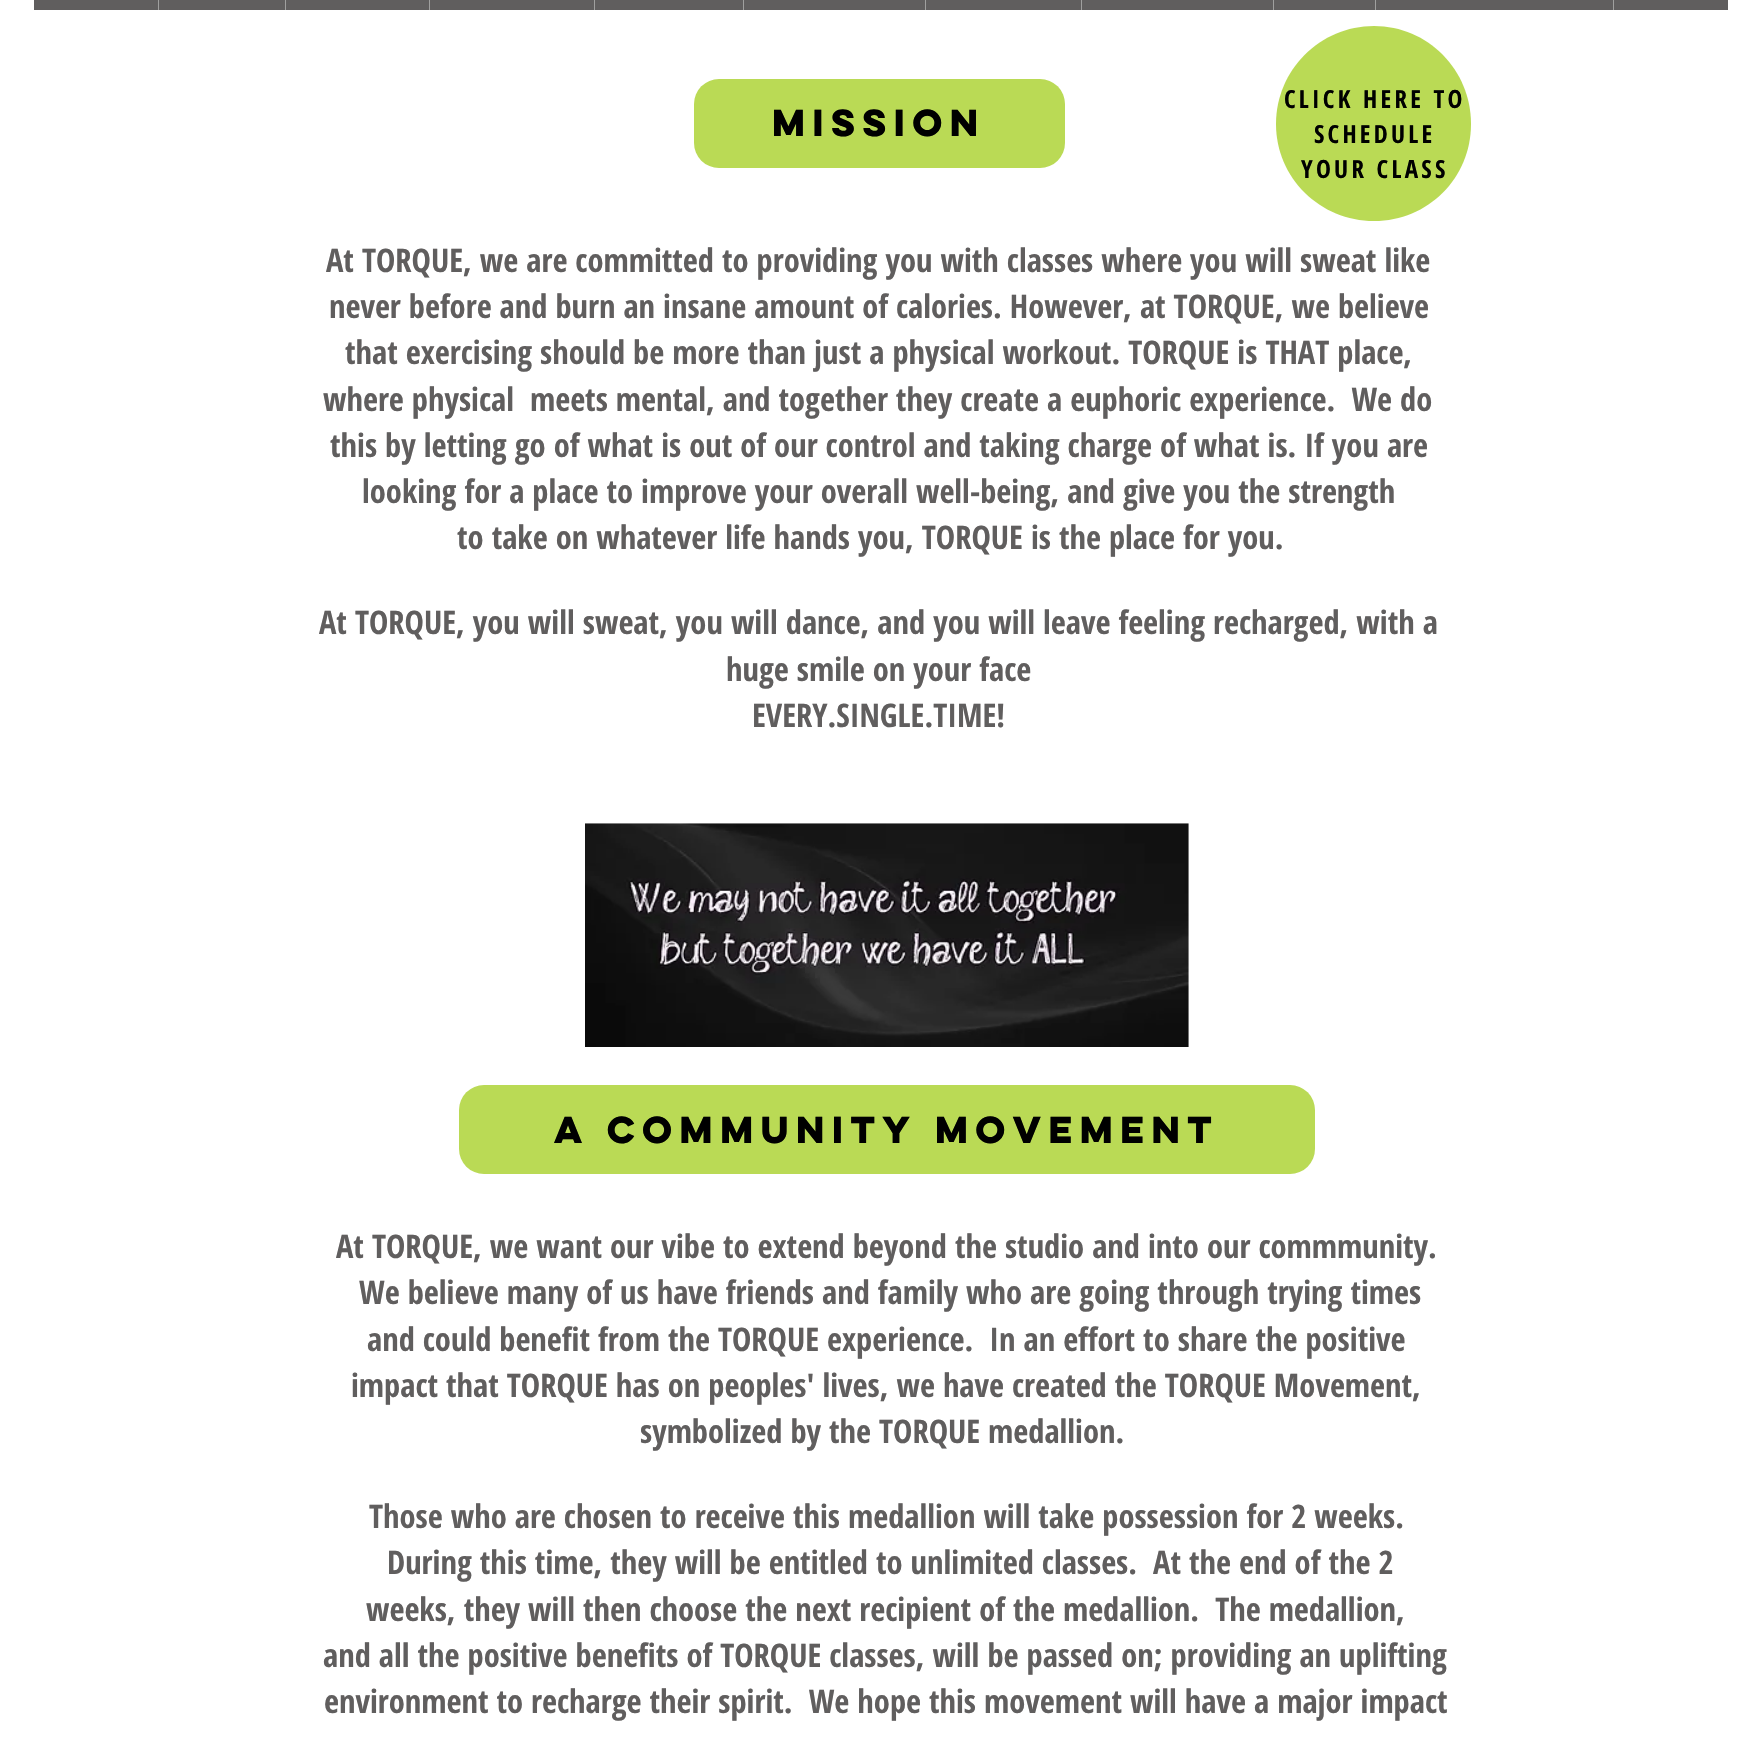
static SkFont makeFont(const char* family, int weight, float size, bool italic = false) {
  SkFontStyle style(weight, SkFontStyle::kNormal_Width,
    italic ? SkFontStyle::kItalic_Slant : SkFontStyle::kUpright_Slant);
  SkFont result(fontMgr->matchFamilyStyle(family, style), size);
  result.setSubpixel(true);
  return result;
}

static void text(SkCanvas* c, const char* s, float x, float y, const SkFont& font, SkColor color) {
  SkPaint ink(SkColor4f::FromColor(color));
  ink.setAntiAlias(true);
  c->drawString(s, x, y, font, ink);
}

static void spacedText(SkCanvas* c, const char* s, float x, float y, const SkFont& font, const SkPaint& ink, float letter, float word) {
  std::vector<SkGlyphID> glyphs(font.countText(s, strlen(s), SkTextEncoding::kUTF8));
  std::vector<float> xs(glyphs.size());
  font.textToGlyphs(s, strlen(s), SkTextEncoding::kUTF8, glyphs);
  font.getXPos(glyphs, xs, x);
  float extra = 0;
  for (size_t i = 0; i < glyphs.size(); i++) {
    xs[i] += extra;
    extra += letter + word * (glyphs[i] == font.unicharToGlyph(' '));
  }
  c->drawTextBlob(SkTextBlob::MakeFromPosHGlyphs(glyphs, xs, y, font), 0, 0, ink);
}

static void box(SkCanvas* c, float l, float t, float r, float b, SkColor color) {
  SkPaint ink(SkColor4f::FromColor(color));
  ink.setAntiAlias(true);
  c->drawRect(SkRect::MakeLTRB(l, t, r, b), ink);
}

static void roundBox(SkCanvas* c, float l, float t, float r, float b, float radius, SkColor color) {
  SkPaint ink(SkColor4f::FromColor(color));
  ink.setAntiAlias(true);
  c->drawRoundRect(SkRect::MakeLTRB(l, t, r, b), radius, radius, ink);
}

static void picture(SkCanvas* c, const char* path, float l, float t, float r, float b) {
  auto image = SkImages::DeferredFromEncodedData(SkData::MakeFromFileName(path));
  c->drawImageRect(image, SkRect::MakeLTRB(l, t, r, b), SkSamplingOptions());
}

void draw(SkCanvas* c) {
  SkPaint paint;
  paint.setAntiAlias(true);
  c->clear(0xffffffff);
  box(c, 34, 0, 1728, 10, 0xff605e5e);
  box(c, 158, 0, 159, 10, 0xffa0a09f);
  box(c, 285, 0, 286, 10, 0xffa0a09f);
  box(c, 429, 0, 430, 10, 0xffa0a09f);
  box(c, 594, 0, 595, 10, 0xffa0a09f);
  box(c, 743, 0, 744, 10, 0xffa0a09f);
  box(c, 925, 0, 926, 10, 0xffa0a09f);
  box(c, 1081, 0, 1082, 10, 0xffa0a09f);
  box(c, 1273, 0, 1274, 10, 0xffa0a09f);
  box(c, 1375, 0, 1376, 10, 0xffa0a09f);
  box(c, 1613, 0, 1614, 10, 0xffa0a09f);
  paint.setColor(0xffbada55);
  c->drawPath(SkPathBuilder().moveTo(1471, 124).cubicTo(1471, 178, 1428, 221, 1374, 221).cubicTo(1320, 221, 1276, 178, 1276, 124).cubicTo(1276, 70, 1320, 26, 1374, 26).cubicTo(1428, 26, 1471, 70, 1471, 124).close().detach(), paint);
  roundBox(c, 694, 79, 1065, 168, 25, 0xffbada55);
  SkFont face1 = makeFont("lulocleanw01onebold", 700, 33.75f);
  text(c, "MISSION", 772, 136, face1, 0xff000000);
  SkFont face2 = makeFont("Open Sans Condensed", 700, 25);
  paint.setColor(0xff000000);
  spacedText(c, "CLICK HERE TO", 1284, 108, face2, paint, 3.25f, 0);
  spacedText(c, "SCHEDULE", 1314, 143, face2, paint, 3.25f, 0);
  spacedText(c, "YOUR CLASS", 1301, 178, face2, paint, 3.25f, 0);
  SkFont face3 = makeFont("Open Sans Condensed", 700, 32.5f);
  text(c, "At TORQUE, we are committed to providing you with classes where you will sweat like", 326, 272, face3, 0xff605e5e);
  text(c, "never before and burn an insane amount of calories. However, at TORQUE, we believe", 329, 318, face3, 0xff605e5e);
  text(c, "that exercising should be more than just a physical workout. TORQUE is THAT place,", 345, 364, face3, 0xff605e5e);
  text(c, "where physical  meets mental, and together they create a euphoric experience.  We do", 323, 411, face3, 0xff605e5e);
  text(c, "this by letting go of what is out of our control and taking charge of what is. If you are", 330, 457, face3, 0xff605e5e);
  text(c, "looking for a place to improve your overall well-being, and give you the strength", 362, 503, face3, 0xff605e5e);
  text(c, "to take on whatever life hands you, TORQUE is the place for you.", 457, 549, face3, 0xff605e5e);
  text(c, "At TORQUE, you will sweat, you will dance, and you will leave feeling recharged, with a", 319, 634, face3, 0xff605e5e);
  text(c, "huge smile on your face", 726, 681, face3, 0xff605e5e);
  text(c, "EVERY.SINGLE.TIME!", 752, 727, face3, 0xff605e5e);
  picture(c, "img_01.png", 585, 823, 1189, 1047);
  roundBox(c, 459, 1085, 1315, 1174, 25, 0xffbada55);
  text(c, "A community MOVEMENT", 554, 1143, face1, 0xff000000);
  text(c, "At TORQUE, we want our vibe to extend beyond the studio and into our commmunity.", 336, 1258, face3, 0xff605e5e);
  text(c, "We believe many of us have friends and family who are going through trying times", 359, 1304, face3, 0xff605e5e);
  text(c, "and could benefit from the TORQUE experience.  In an effort to share the positive", 367, 1351, face3, 0xff605e5e);
  text(c, "impact that TORQUE has on peoples' lives, we have created the TORQUE Movement,", 351, 1397, face3, 0xff605e5e);
  text(c, "symbolized by the TORQUE medallion.", 640, 1443, face3, 0xff605e5e);
  text(c, "Those who are chosen to receive this medallion will take possession for 2 weeks.", 369, 1528, face3, 0xff605e5e);
  text(c, "During this time, they will be entitled to unlimited classes.  At the end of the 2", 387, 1574, face3, 0xff605e5e);
  text(c, "weeks, they will then choose the next recipient of the medallion.  The medallion,", 366, 1621, face3, 0xff605e5e);
  text(c, "and all the positive benefits of TORQUE classes, will be passed on; providing an uplifting", 323, 1667, face3, 0xff605e5e);
  text(c, "environment to recharge their spirit.  We hope this movement will have a major impact", 324, 1713, face3, 0xff605e5e);
}
